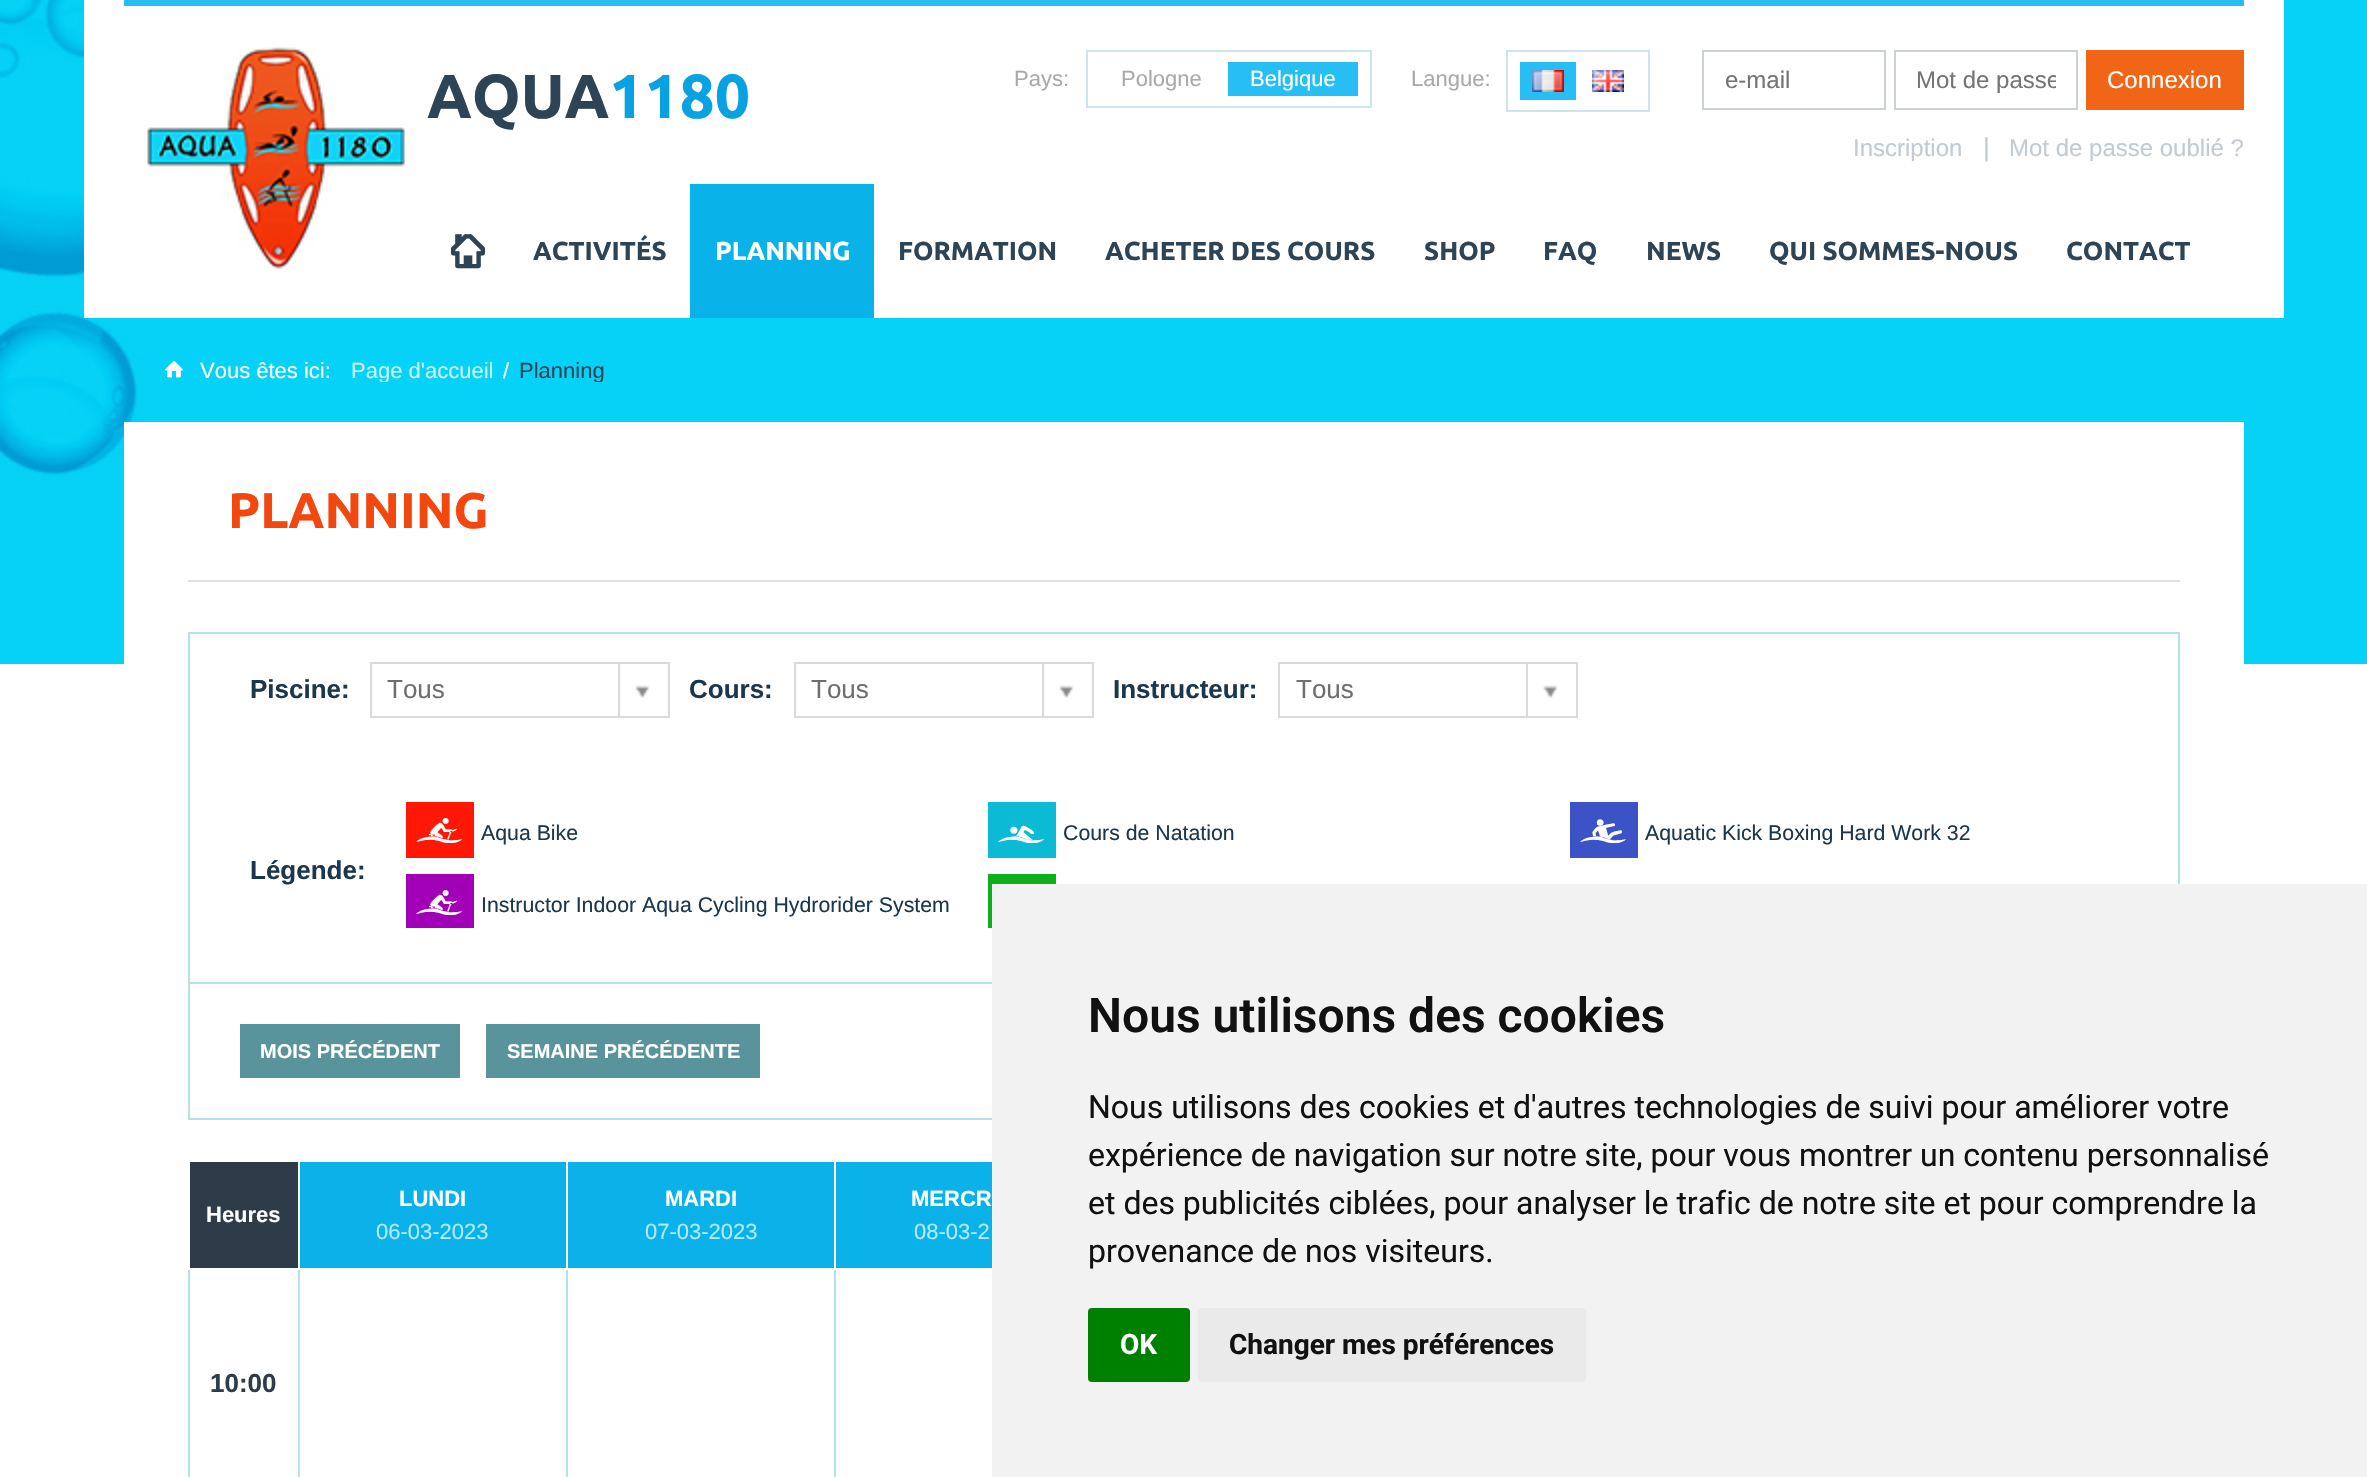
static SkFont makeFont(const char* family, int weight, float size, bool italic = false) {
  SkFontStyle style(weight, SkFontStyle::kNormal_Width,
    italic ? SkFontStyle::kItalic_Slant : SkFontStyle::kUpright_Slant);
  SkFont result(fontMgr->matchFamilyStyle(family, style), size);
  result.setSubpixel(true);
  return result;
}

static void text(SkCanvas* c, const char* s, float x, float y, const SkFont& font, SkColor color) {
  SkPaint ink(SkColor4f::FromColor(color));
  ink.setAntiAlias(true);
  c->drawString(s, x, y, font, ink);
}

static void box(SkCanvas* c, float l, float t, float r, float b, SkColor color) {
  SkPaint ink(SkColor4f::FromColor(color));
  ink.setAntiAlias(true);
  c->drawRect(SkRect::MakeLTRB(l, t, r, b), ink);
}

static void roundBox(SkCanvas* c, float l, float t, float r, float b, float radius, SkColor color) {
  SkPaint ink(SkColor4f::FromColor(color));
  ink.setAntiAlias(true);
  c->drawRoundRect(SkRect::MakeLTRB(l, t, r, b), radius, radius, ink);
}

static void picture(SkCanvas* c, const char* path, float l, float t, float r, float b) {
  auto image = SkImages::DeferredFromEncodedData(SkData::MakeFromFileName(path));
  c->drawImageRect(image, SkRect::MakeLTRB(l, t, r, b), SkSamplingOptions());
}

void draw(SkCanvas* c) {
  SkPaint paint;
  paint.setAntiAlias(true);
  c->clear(0xffffffff);
  picture(c, "img_01.png", 0, 0, 2367, 664);
  box(c, 84, 0, 2284, 318, 0xffffffff);
  box(c, 124, 0, 2244, 6, 0xff27bef3);
  picture(c, "img_02.png", 147, 47, 405, 269);
  SkFont face1 = makeFont("Ubuntu", 700, 62);
  text(c, "AQUA", 427, 118, face1, 0xff2d4456);
  text(c, "1180", 609, 118, face1, 0xff08a2e2);
  SkFont face2 = makeFont("Liberation Sans", 400, 22);
  text(c, "Pays:", 1014, 86, face2, 0xffa9a9a9);
  paint.setStyle(SkPaint::kStroke_Style);
  paint.setStrokeWidth(2);
  paint.setColor(0xffcae6ec);
  c->drawRect(SkRect::MakeLTRB(1087, 51, 1371, 107), paint);
  text(c, "Pologne", 1121, 86, face2, 0xffa9a9a9);
  box(c, 1228, 62, 1358, 96, 0xff27bef3);
  text(c, "Belgique", 1250, 86, face2, 0xffffffff);
  text(c, "Langue:", 1411, 86, face2, 0xffa9a9a9);
  c->drawRect(SkRect::MakeLTRB(1507, 51, 1649, 111), paint);
  box(c, 1520, 62, 1576, 100, 0xff27bef3);
  picture(c, "img_03.png", 1532, 70, 1564, 92);
  picture(c, "img_04.png", 1592, 70, 1624, 92);
  paint.setColor(0xffccd1d5);
  c->drawRect(SkRect::MakeLTRB(1703, 51, 1885, 109), paint);
  SkFont face3 = makeFont("Liberation Sans", 400, 24);
  text(c, "e-mail", 1725, 88, face3, 0xff757575);
  c->drawRect(SkRect::MakeLTRB(1895, 51, 2077, 109), paint);
  c->save();
  c->clipRect(SkRect::MakeLTRB(1916, 66, 2056, 94));
  text(c, "Mot de passe", 1916, 88, face3, 0xff757575);
  c->restore();
  box(c, 2086, 50, 2244, 110, 0xfff06516);
  text(c, "Connexion", 2107, 88, face3, 0xffffffff);
  text(c, "Inscription", 1853, 156, face3, 0xffc2cbd3);
  SkFont face4 = makeFont("Liberation Sans", 400, 26);
  text(c, "|", 1983, 156, face4, 0xffc2cbd3);
  text(c, "Mot de passe oublié ?", 2009, 156, face3, 0xffc2cbd3);
  SkFont face5 = makeFont("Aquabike", 400, 34);
  text(c, "z", 451, 266, face5, 0xff2d4456);
  SkFont face6 = makeFont("Ubuntu", 700, 26);
  text(c, "ACTIVITÉS", 533, 260, face6, 0xff2d4456);
  box(c, 690, 184, 874, 318, 0xff0ab2ea);
  text(c, "PLANNING", 715, 260, face6, 0xffffffff);
  text(c, "FORMATION", 898, 260, face6, 0xff2d4456);
  text(c, "ACHETER DES COURS", 1105, 260, face6, 0xff2d4456);
  text(c, "SHOP", 1424, 260, face6, 0xff2d4456);
  text(c, "FAQ", 1543, 260, face6, 0xff2d4456);
  text(c, "NEWS", 1646, 260, face6, 0xff2d4456);
  text(c, "QUI SOMMES-NOUS", 1769, 260, face6, 0xff2d4456);
  text(c, "CONTACT", 2066, 260, face6, 0xff2d4456);
  SkFont face7 = makeFont("Aquabike", 400, 20);
  text(c, "x", 164, 378, face7, 0xffffffff);
  text(c, "Vous êtes ici:", 200, 378, face2, 0xffffffff);
  c->save();
  c->clipRect(SkRect::MakeLTRB(330, 358, 2204, 382));
  text(c, "Page d'accueil", 351, 378, face2, 0xffc9f4fd);
  c->restore();
  text(c, "/", 503, 378, face2, 0xffffffff);
  c->save();
  c->clipRect(SkRect::MakeLTRB(330, 358, 2204, 382));
  text(c, "Planning", 519, 378, face2, 0xff2d4456);
  c->restore();
  box(c, 124, 422, 2244, 664, 0xffffffff);
  box(c, 188, 580, 2180, 582, 0xffdfdfdf);
  SkFont face8 = makeFont("Ubuntu", 700, 50);
  text(c, "PLANNING", 228, 528, face8, 0xfff2470e);
  box(c, 188, 632, 2180, 634, 0xffb3e1ea);
  box(c, 2178, 632, 2180, 884, 0xffb3e1ea);
  box(c, 188, 632, 190, 982, 0xffb3e1ea);
  SkFont face9 = makeFont("Liberation Sans", 700, 26);
  text(c, "Piscine:", 250, 698, face9, 0xff1b374d);
  paint.setColor(0xffdadada);
  c->drawRect(SkRect::MakeLTRB(371, 663, 669, 717), paint);
  text(c, "Tous", 387, 698, face4, 0xff6e6e6e);
  box(c, 618, 664, 620, 716, 0xffdadada);
  picture(c, "img_05.png", 635, 685, 650, 699);
  text(c, "Cours:", 689, 698, face9, 0xff1b374d);
  c->drawRect(SkRect::MakeLTRB(795, 663, 1093, 717), paint);
  text(c, "Tous", 811, 698, face4, 0xff6e6e6e);
  box(c, 1042, 664, 1044, 716, 0xffdadada);
  picture(c, "img_05.png", 1059, 685, 1074, 699);
  text(c, "Instructeur:", 1113, 698, face9, 0xff1b374d);
  c->drawRect(SkRect::MakeLTRB(1279, 663, 1577, 717), paint);
  text(c, "Tous", 1296, 698, face4, 0xff6e6e6e);
  box(c, 1526, 664, 1528, 716, 0xffdadada);
  picture(c, "img_05.png", 1543, 685, 1558, 699);
  text(c, "Légende:", 250, 879, face9, 0xff1b374d);
  box(c, 406, 802, 474, 858, 0xffff1808);
  SkFont face10 = makeFont("Aquabike", 400, 39);
  text(c, "1", 413, 846, face10, 0xffffffff);
  SkFont face11 = makeFont("Liberation Sans", 400, 21.3f);
  text(c, "Aqua Bike", 481, 840, face11, 0xff1b374d);
  box(c, 988, 802, 1056, 858, 0xff0bbbd6);
  text(c, "2", 995, 846, face10, 0xffffffff);
  text(c, "Cours de Natation", 1063, 840, face11, 0xff1b374d);
  box(c, 1570, 802, 1638, 858, 0xff3c53c7);
  text(c, "6", 1577, 846, face10, 0xffffffff);
  text(c, "Aquatic Kick Boxing Hard Work 32", 1645, 840, face11, 0xff1b374d);
  box(c, 406, 874, 474, 928, 0xffa100b8);
  text(c, "1", 413, 918, face10, 0xffffffff);
  text(c, "Instructor Indoor Aqua Cycling Hydrorider System", 481, 912, face11, 0xff1b374d);
  box(c, 988, 874, 1056, 928, 0xff0bb01b);
  paint.setColor(0xffb3e1ea);
  c->drawRect(SkRect::MakeLTRB(189, 983, 2179, 1119), paint);
  box(c, 240, 1024, 460, 1078, 0xff59939c);
  SkFont face12 = makeFont("Liberation Sans", 700, 20);
  text(c, "MOIS PRÉCÉDENT", 260, 1058, face12, 0xffffffff);
  box(c, 486, 1024, 760, 1078, 0xff59939c);
  text(c, "SEMAINE PRÉCÉDENTE", 507, 1058, face12, 0xffffffff);
  box(c, 190, 1162, 298, 1268, 0xff2d3c48);
  box(c, 188, 1268, 190, 1477, 0xffb2e1e9);
  box(c, 188, 1268, 190, 1270, 0xffffffff);
  SkFont face13 = makeFont("Liberation Sans", 700, 22);
  text(c, "Heures", 206, 1222, face13, 0xffffffff);
  box(c, 300, 1162, 566, 1268, 0xff0bb2e9);
  box(c, 298, 1268, 300, 1477, 0xffb2e1e9);
  box(c, 298, 1268, 300, 1270, 0xffffffff);
  text(c, "LUNDI", 399, 1206, face13, 0xffffffff);
  text(c, "06-03-2023", 376, 1239, face2, 0xffafebff);
  box(c, 568, 1162, 834, 1268, 0xff0bb2e9);
  box(c, 566, 1268, 568, 1477, 0xffb2e1e9);
  box(c, 566, 1268, 568, 1270, 0xffffffff);
  text(c, "MARDI", 665, 1206, face13, 0xffffffff);
  text(c, "07-03-2023", 645, 1239, face2, 0xffafebff);
  box(c, 836, 1162, 992, 1268, 0xff0bb2e9);
  box(c, 834, 1268, 836, 1477, 0xffb2e1e9);
  box(c, 834, 1268, 836, 1270, 0xffffffff);
  text(c, "MERCR", 911, 1206, face13, 0xffffffff);
  text(c, "08-03-2", 914, 1239, face2, 0xffafebff);
  text(c, "10:00", 210, 1392, face9, 0xff2d3c48);
  box(c, 992, 884, 2367, 1477, 0xfff2f2f2);
  SkFont face14 = makeFont("Roboto", 600, 48);
  text(c, "Nous utilisons des cookies", 1088, 1032, face14, 0xff111111);
  SkFont face15 = makeFont("Roboto", 400, 32);
  text(c, "Nous utilisons des cookies et d'autres technologies de suivi pour améliorer votre", 1088, 1118, face15, 0xff111111);
  text(c, "expérience de navigation sur notre site, pour vous montrer un contenu personnalisé", 1088, 1166, face15, 0xff111111);
  text(c, "et des publicités ciblées, pour analyser le trafic de notre site et pour comprendre la", 1088, 1214, face15, 0xff111111);
  text(c, "provenance de nos visiteurs.", 1088, 1262, face15, 0xff111111);
  roundBox(c, 1088, 1308, 1190, 1382, 4, 0xff008000);
  SkFont face16 = makeFont("Roboto", 700, 28);
  text(c, "OK", 1120, 1354, face16, 0xffffffff);
  roundBox(c, 1198, 1308, 1586, 1382, 4, 0xffeaeaea);
  text(c, "Changer mes préférences", 1229, 1354, face16, 0xff111111);
}
